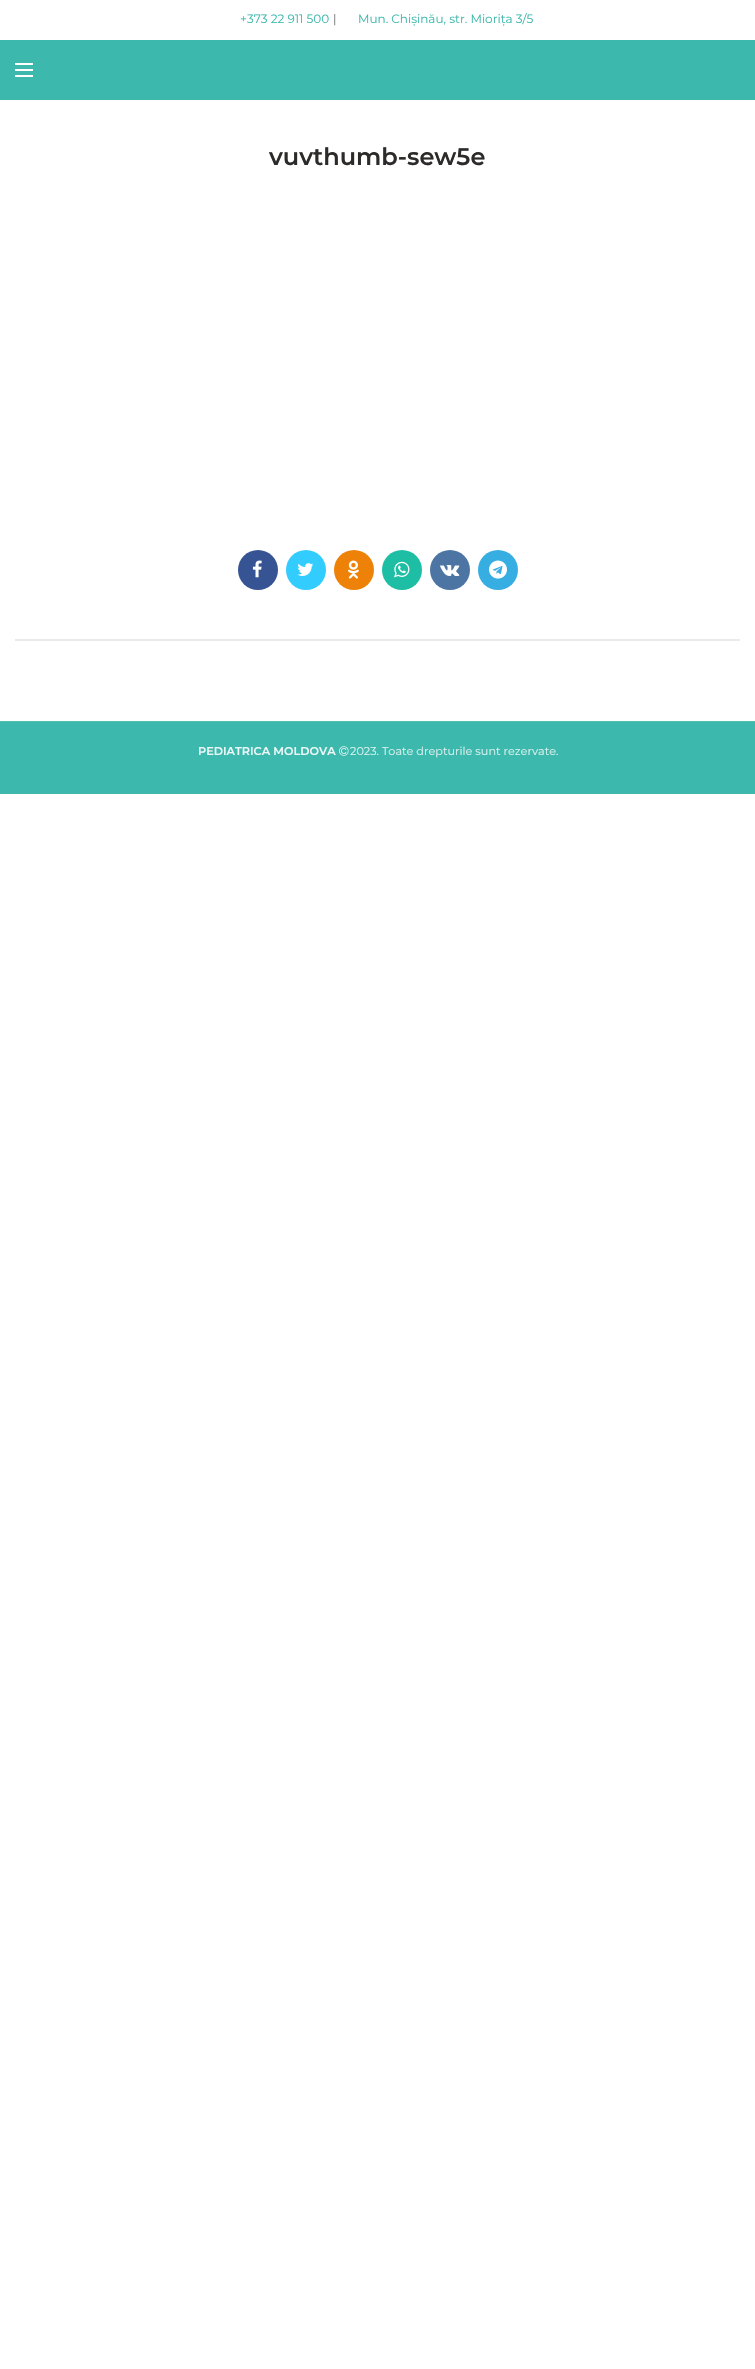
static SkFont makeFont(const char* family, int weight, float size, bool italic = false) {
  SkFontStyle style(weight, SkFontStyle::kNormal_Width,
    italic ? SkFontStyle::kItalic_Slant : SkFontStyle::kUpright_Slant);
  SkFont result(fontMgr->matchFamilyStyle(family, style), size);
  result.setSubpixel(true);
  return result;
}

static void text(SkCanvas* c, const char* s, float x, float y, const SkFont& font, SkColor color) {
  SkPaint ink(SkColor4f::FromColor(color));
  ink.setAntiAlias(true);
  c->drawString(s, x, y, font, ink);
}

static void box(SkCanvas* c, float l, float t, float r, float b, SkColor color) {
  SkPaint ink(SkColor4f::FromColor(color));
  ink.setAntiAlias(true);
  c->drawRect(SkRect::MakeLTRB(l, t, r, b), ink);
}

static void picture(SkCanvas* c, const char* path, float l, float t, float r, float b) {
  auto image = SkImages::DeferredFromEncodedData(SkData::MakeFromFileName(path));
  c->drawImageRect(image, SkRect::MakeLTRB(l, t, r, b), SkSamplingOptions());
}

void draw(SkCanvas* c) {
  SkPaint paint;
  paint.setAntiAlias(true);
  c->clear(0xffffffff);
  SkFont face1 = makeFont("Montserrat", 400, 12);
  text(c, "+373 22 911 500", 240, 23, face1, 0xff3cb8ac);
  text(c, "|", 333, 23, face1, 0xff777777);
  text(c, "Mun. Chișinău, str. Miorița 3/5", 358, 23, face1, 0xff3cb8ac);
  box(c, 0, 40, 755, 100, 0xff3cb8ac);
  box(c, 15, 69, 33, 71, 0xffffffff);
  box(c, 15, 63, 33, 65, 0xffffffff);
  box(c, 15, 75, 33, 77, 0xffffffff);
  SkFont face2 = makeFont("Montserrat", 600, 24);
  text(c, "vuvthumb-sew5e", 269, 165, face2, 0xff2d2a2a);
  paint.setColor(0xff365493);
  c->drawCircle(258, 570, 20, paint);
  picture(c, "img_01.png", 252, 560, 262, 578);
  paint.setColor(0xff33ccff);
  c->drawCircle(306, 570, 20, paint);
  picture(c, "img_02.png", 297, 563, 314, 576);
  paint.setColor(0xffee8208);
  c->drawCircle(354, 570, 20, paint);
  picture(c, "img_03.png", 348, 560, 359, 579);
  paint.setColor(0xff1ebea5);
  c->drawCircle(402, 570, 20, paint);
  picture(c, "img_04.png", 394, 561, 410, 578);
  paint.setColor(0xff4c75a3);
  c->drawCircle(450, 570, 20, paint);
  picture(c, "img_05.png", 440, 565, 460, 576);
  paint.setColor(0xff37aee2);
  c->drawCircle(498, 570, 20, paint);
  picture(c, "img_06.png", 489, 560, 507, 579);
  box(c, 15, 639, 740, 641, 0xffeaeaea);
  box(c, 0, 722, 755, 794, 0xff3cb8ac);
  box(c, 0, 721, 755, 722, 0xff50bfb4);
  SkFont face3 = makeFont("Montserrat", 600, 11.25f);
  text(c, "PEDIATRICA MOLDOVA", 198, 755, face3, 0xffecf8f7);
  picture(c, "img_07.png", 339, 746, 349, 756);
  SkFont face4 = makeFont("Montserrat", 400, 11.25f);
  text(c, "2023. Toate drepturile sunt rezervate.", 350, 755, face4, 0xffd8f1ee);
}
